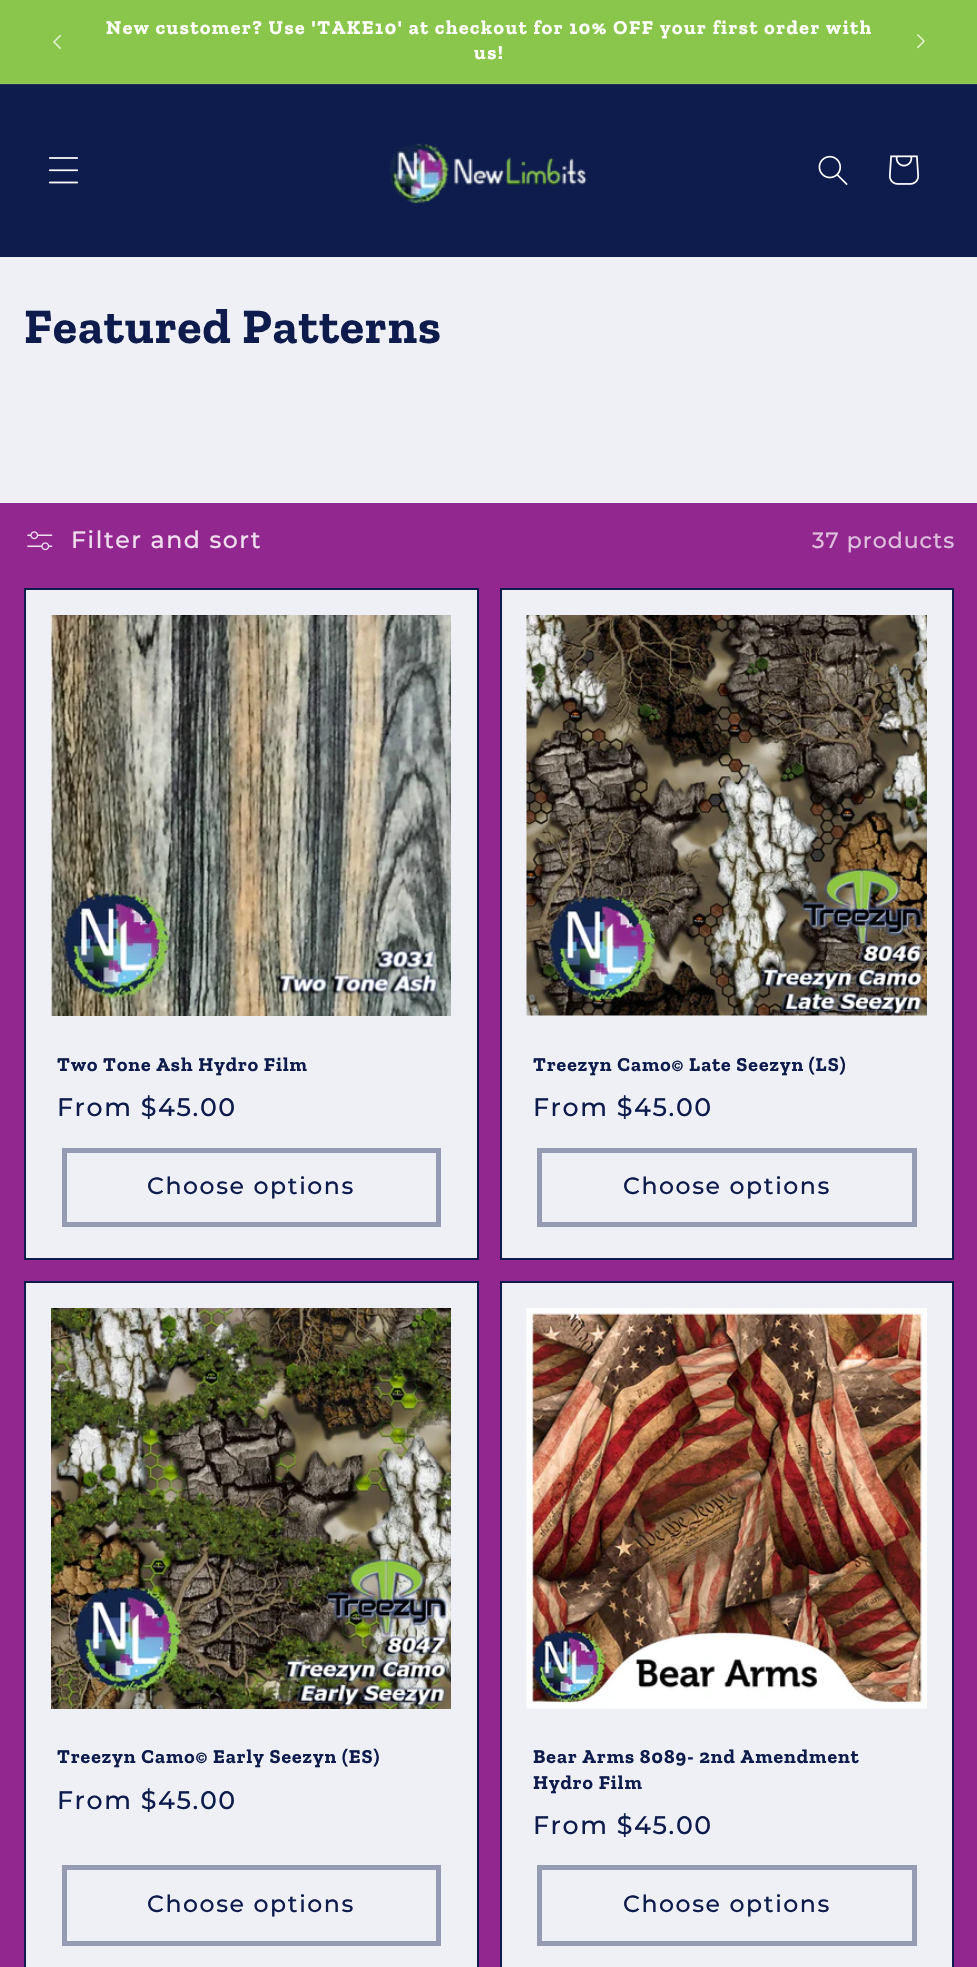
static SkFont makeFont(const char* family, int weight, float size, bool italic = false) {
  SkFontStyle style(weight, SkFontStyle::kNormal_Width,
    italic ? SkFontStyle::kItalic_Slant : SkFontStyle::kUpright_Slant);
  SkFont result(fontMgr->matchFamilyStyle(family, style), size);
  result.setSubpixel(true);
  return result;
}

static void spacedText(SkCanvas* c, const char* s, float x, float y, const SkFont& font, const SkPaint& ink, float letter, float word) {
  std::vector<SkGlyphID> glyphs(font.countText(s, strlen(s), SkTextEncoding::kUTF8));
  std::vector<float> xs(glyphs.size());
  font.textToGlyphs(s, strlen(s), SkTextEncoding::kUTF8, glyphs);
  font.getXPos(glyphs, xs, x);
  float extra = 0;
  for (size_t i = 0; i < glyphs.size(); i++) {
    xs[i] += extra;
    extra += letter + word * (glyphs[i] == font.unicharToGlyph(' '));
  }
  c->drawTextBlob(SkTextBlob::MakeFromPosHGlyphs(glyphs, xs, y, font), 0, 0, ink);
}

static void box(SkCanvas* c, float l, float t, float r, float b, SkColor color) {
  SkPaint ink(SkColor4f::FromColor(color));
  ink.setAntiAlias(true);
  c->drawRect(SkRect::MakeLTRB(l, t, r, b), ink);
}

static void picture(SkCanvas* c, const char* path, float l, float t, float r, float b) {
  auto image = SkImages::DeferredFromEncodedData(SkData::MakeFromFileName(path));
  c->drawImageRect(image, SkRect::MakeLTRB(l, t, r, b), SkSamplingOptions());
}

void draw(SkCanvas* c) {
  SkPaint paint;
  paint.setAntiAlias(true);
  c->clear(0xffeff0f5);
  box(c, 0, 0, 977, 83, 0xff8ac64c);
  box(c, 0, 83, 977, 84, 0xff93cb5a);
  picture(c, "img_01.png", 53, 34, 61, 49);
  SkFont face1 = makeFont("Zilla Slab", 700, 19.8f);
  paint.setColor(0xffffffff);
  spacedText(c, "New customer? Use 'TAKE10' at checkout for 10% OFF your first order with", 106, 34, face1, paint, 1.58f, 0);
  spacedText(c, "us!", 474, 59, face1, paint, 1.58f, 0);
  picture(c, "img_02.png", 917, 34, 925, 49);
  box(c, 0, 85, 977, 257, 0xff0e1b4d);
  box(c, 0, 84, 977, 85, 0xff212d5b);
  picture(c, "img_03.png", 48, 157, 79, 184);
  picture(c, "img_04.png", 389, 143, 587, 205);
  picture(c, "img_05.png", 818, 155, 848, 185);
  picture(c, "img_06.png", 889, 155, 920, 185);
  SkFont face2 = makeFont("Zilla Slab", 700, 49.5f);
  paint.setColor(0xff0e1b4d);
  spacedText(c, "Featured Patterns", 24, 343, face2, paint, 1, 0);
  box(c, 0, 503, 977, 1967, 0xff92278f);
  picture(c, "img_07.png", 27, 531, 53, 551);
  SkFont face3 = makeFont("Montserrat", 500, 23.6f);
  paint.setColor(0xffefdfee);
  spacedText(c, "Filter and sort", 71, 548, face3, paint, 1.58f, 0);
  SkFont face4 = makeFont("Montserrat", 500, 22);
  paint.setColor(0xffdebedd);
  spacedText(c, "37 products", 812, 548, face4, paint, 1, 0);
  paint.setColor(0xffeff0f5);
  c->drawRect(SkRect::MakeLTRB(25, 589, 478, 1259), paint);
  paint.setStyle(SkPaint::kStroke_Style);
  paint.setStrokeWidth(2);
  paint.setColor(0xff0e1b4d);
  c->drawRect(SkRect::MakeLTRB(25, 589, 478, 1259), paint);
  picture(c, "img_08.png", 51, 615, 451, 1016);
  paint.setStyle(SkPaint::kFill_Style);
  spacedText(c, "Two Tone Ash Hydro Film", 57, 1071, face1, paint, 1, 0);
  SkFont face5 = makeFont("Montserrat", 500, 25.25f);
  spacedText(c, "From $45.00", 57, 1116, face5, paint, 1.58f, 0);
  paint.setStyle(SkPaint::kStroke_Style);
  paint.setStrokeWidth(5);
  paint.setColor(0xff959bb2);
  c->drawRect(SkRect::MakeLTRB(64.5f, 1150.5f, 438.5f, 1224.5f), paint);
  paint.setStyle(SkPaint::kFill_Style);
  paint.setColor(0xff0e1b4d);
  spacedText(c, "Choose options", 147, 1194, face3, paint, 1.58f, 0);
  paint.setColor(0xffeff0f5);
  c->drawRect(SkRect::MakeLTRB(501, 589, 953, 1259), paint);
  paint.setStyle(SkPaint::kStroke_Style);
  paint.setStrokeWidth(2);
  paint.setColor(0xff0e1b4d);
  c->drawRect(SkRect::MakeLTRB(501, 589, 953, 1259), paint);
  picture(c, "img_09.png", 526, 615, 927, 1016);
  paint.setStyle(SkPaint::kFill_Style);
  spacedText(c, "Treezyn Camo© Late Seezyn (LS)", 533, 1071, face1, paint, 1, 0);
  spacedText(c, "From $45.00", 533, 1116, face5, paint, 1.58f, 0);
  paint.setStyle(SkPaint::kStroke_Style);
  paint.setStrokeWidth(5);
  paint.setColor(0xff959bb2);
  c->drawRect(SkRect::MakeLTRB(539.5f, 1150.5f, 914.5f, 1224.5f), paint);
  paint.setStyle(SkPaint::kFill_Style);
  paint.setColor(0xff0e1b4d);
  spacedText(c, "Choose options", 623, 1194, face3, paint, 1.58f, 0);
  paint.setColor(0xffeff0f5);
  c->drawRect(SkRect::MakeLTRB(25, 1282, 478, 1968), paint);
  paint.setStyle(SkPaint::kStroke_Style);
  paint.setStrokeWidth(2);
  paint.setColor(0xff0e1b4d);
  c->drawRect(SkRect::MakeLTRB(25, 1282, 478, 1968), paint);
  picture(c, "img_10.png", 51, 1308, 451, 1709);
  paint.setStyle(SkPaint::kFill_Style);
  spacedText(c, "Treezyn Camo© Early Seezyn (ES)", 57, 1763, face1, paint, 1, 0);
  spacedText(c, "From $45.00", 57, 1809, face5, paint, 1.58f, 0);
  paint.setStyle(SkPaint::kStroke_Style);
  paint.setStrokeWidth(5);
  paint.setColor(0xff959bb2);
  c->drawRect(SkRect::MakeLTRB(64.5f, 1867.5f, 438.5f, 1943.5f), paint);
  paint.setStyle(SkPaint::kFill_Style);
  paint.setColor(0xff0e1b4d);
  spacedText(c, "Choose options", 147, 1912, face3, paint, 1.58f, 0);
  paint.setColor(0xffeff0f5);
  c->drawRect(SkRect::MakeLTRB(501, 1282, 953, 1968), paint);
  paint.setStyle(SkPaint::kStroke_Style);
  paint.setStrokeWidth(2);
  paint.setColor(0xff0e1b4d);
  c->drawRect(SkRect::MakeLTRB(501, 1282, 953, 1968), paint);
  picture(c, "img_11.png", 526, 1308, 927, 1709);
  paint.setStyle(SkPaint::kFill_Style);
  spacedText(c, "Bear Arms 8089- 2nd Amendment", 533, 1763, face1, paint, 1, 0);
  spacedText(c, "Hydro Film", 533, 1789, face1, paint, 1, 0);
  spacedText(c, "From $45.00", 533, 1834, face5, paint, 1.58f, 0);
  paint.setStyle(SkPaint::kStroke_Style);
  paint.setStrokeWidth(5);
  paint.setColor(0xff959bb2);
  c->drawRect(SkRect::MakeLTRB(539.5f, 1867.5f, 914.5f, 1943.5f), paint);
  paint.setStyle(SkPaint::kFill_Style);
  paint.setColor(0xff0e1b4d);
  spacedText(c, "Choose options", 623, 1912, face3, paint, 1.58f, 0);
}
